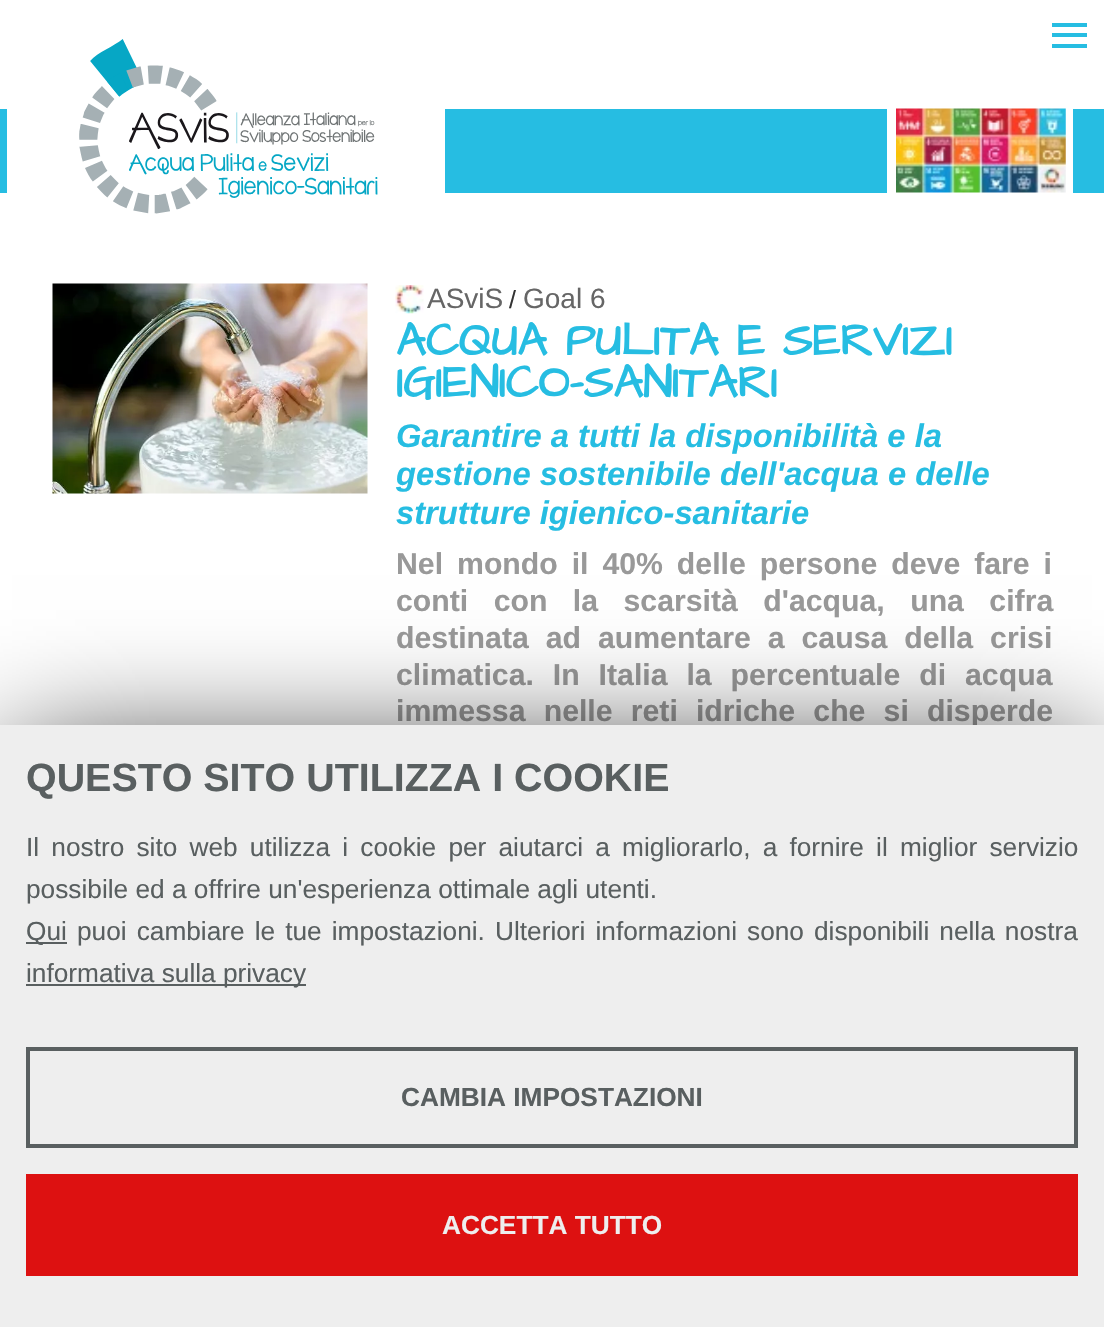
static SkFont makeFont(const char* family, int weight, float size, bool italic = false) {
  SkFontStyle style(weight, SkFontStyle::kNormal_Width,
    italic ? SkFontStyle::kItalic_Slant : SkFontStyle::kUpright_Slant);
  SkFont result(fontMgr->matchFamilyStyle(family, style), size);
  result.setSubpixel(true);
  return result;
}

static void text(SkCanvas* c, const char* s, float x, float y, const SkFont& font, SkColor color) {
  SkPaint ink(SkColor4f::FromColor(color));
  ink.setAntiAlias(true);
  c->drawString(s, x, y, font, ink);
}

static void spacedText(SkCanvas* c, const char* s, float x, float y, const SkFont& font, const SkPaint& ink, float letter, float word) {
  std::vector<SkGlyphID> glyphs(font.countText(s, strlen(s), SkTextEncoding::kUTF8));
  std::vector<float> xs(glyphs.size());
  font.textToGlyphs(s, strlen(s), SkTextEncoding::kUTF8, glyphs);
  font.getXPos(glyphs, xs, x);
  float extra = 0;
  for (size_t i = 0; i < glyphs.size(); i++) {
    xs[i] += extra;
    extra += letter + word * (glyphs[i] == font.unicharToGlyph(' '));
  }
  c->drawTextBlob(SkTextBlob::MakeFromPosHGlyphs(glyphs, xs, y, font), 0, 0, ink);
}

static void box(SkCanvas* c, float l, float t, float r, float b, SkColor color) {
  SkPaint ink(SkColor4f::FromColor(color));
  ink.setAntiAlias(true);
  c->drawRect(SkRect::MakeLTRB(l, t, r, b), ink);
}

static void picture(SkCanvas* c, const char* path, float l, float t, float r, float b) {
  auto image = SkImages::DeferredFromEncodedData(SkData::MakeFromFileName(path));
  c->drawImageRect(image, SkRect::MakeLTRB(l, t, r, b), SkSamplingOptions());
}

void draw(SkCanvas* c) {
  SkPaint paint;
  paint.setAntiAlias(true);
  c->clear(0xffffffff);
  box(c, 1052, 23, 1087, 27, 0xff26bde2);
  box(c, 1052, 33, 1087, 37, 0xff26bde2);
  box(c, 1052, 44, 1087, 48, 0xff26bde2);
  box(c, 0, 109, 1104, 193, 0xff26bde2);
  box(c, 7, 109, 445, 193, 0xffffffff);
  picture(c, "img_01.png", 79, 39, 378, 214);
  box(c, 887, 109, 1073, 193, 0xffffffff);
  picture(c, "img_02.png", 896, 108, 1066, 193);
  picture(c, "img_03.png", 52, 283, 368, 494);
  picture(c, "img_04.png", 395, 285, 424, 314);
  SkFont face1 = makeFont("Liberation Sans", 400, 28);
  text(c, "ASviS", 427, 308, face1, 0xff666666);
  SkFont face2 = makeFont("Liberation Sans", 400, 25);
  text(c, "/", 509, 308, face2, 0xff333333);
  text(c, "Goal 6", 523, 308, face1, 0xff666666);
  SkFont face3 = makeFont("Architects Daughter", 700, 46.25f);
  text(c, "ACQUA PULITA E SERVIZI", 396, 355, face3, 0xff26bde2);
  text(c, "IGIENICO-SANITARI", 396, 397, face3, 0xff26bde2);
  SkFont face4 = makeFont("Liberation Sans", 700, 32.75f, true);
  text(c, "Garantire a tutti la disponibilità e la", 396, 447, face4, 0xff26bde2);
  text(c, "gestione sostenibile dell'acqua e delle", 396, 485, face4, 0xff26bde2);
  text(c, "strutture igienico-sanitarie", 396, 524, face4, 0xff26bde2);
  SkFont face5 = makeFont("Liberation Sans", 700, 30.25f);
  paint.setColor(0xff999999);
  spacedText(c, "Nel mondo il 40% delle persone deve fare i", 396, 574, face5, paint, 0, 5.5f);
  spacedText(c, "conti con la scarsità d'acqua, una cifra", 396, 611, face5, paint, 0, 17);
  spacedText(c, "destinata ad aumentare a causa della crisi", 396, 648, face5, paint, 0, 8.5f);
  spacedText(c, "climatica. In Italia la percentuale di acqua", 396, 685, face5, paint, 0, 10.5f);
  spacedText(c, "immessa nelle reti idriche che si disperde", 396, 721, face5, paint, 0, 9.75f);
  paint.setColor(0xff000000);
  paint.setMaskFilter(SkMaskFilter::MakeBlur(kNormal_SkBlurStyle, 63));
  c->drawRect(SkRect::MakeLTRB(12, 763, 1092, 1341), paint);
  paint.setMaskFilter(nullptr);
  box(c, 0, 725, 1104, 1327, 0xffeeeeee);
  SkFont face6 = makeFont("Liberation Sans", 700, 39.4f);
  text(c, "QUESTO SITO UTILIZZA I COOKIE", 26, 791, face6, 0xff595f60);
  SkFont face7 = makeFont("Liberation Sans", 400, 26.25f);
  paint.setColor(0xff595f60);
  spacedText(c, "Il nostro sito web utilizza i cookie per aiutarci a migliorarlo, a fornire il miglior servizio", 26, 856, face7, paint, 0, 4.9f);
  text(c, "possibile ed a offrire un'esperienza ottimale agli utenti.", 26, 898, face7, 0xff595f60);
  box(c, 26, 942, 67, 944, 0xff595f60);
  text(c, "Qui", 26, 940, face7, 0xff595f60);
  spacedText(c, "puoi cambiare le tue impostazioni.", 77, 940, face7, paint, 0, 2.75f);
  spacedText(c, "Ulteriori informazioni sono disponibili nella nostra", 495, 940, face7, paint, 0, 2.75f);
  box(c, 26, 984, 306, 986, 0xff595f60);
  text(c, "informativa sulla privacy", 26, 982, face7, 0xff595f60);
  paint.setStyle(SkPaint::kStroke_Style);
  paint.setStrokeWidth(4);
  c->drawRect(SkRect::MakeLTRB(28, 1049, 1076, 1146), paint);
  SkFont face8 = makeFont("Liberation Sans", 700, 26.25f);
  text(c, "CAMBIA IMPOSTAZIONI", 401, 1106, face8, 0xff595f60);
  box(c, 26, 1174, 1078, 1276, 0xffdd1111);
  text(c, "ACCETTA TUTTO", 442, 1234, face8, 0xffeeeeee);
}
